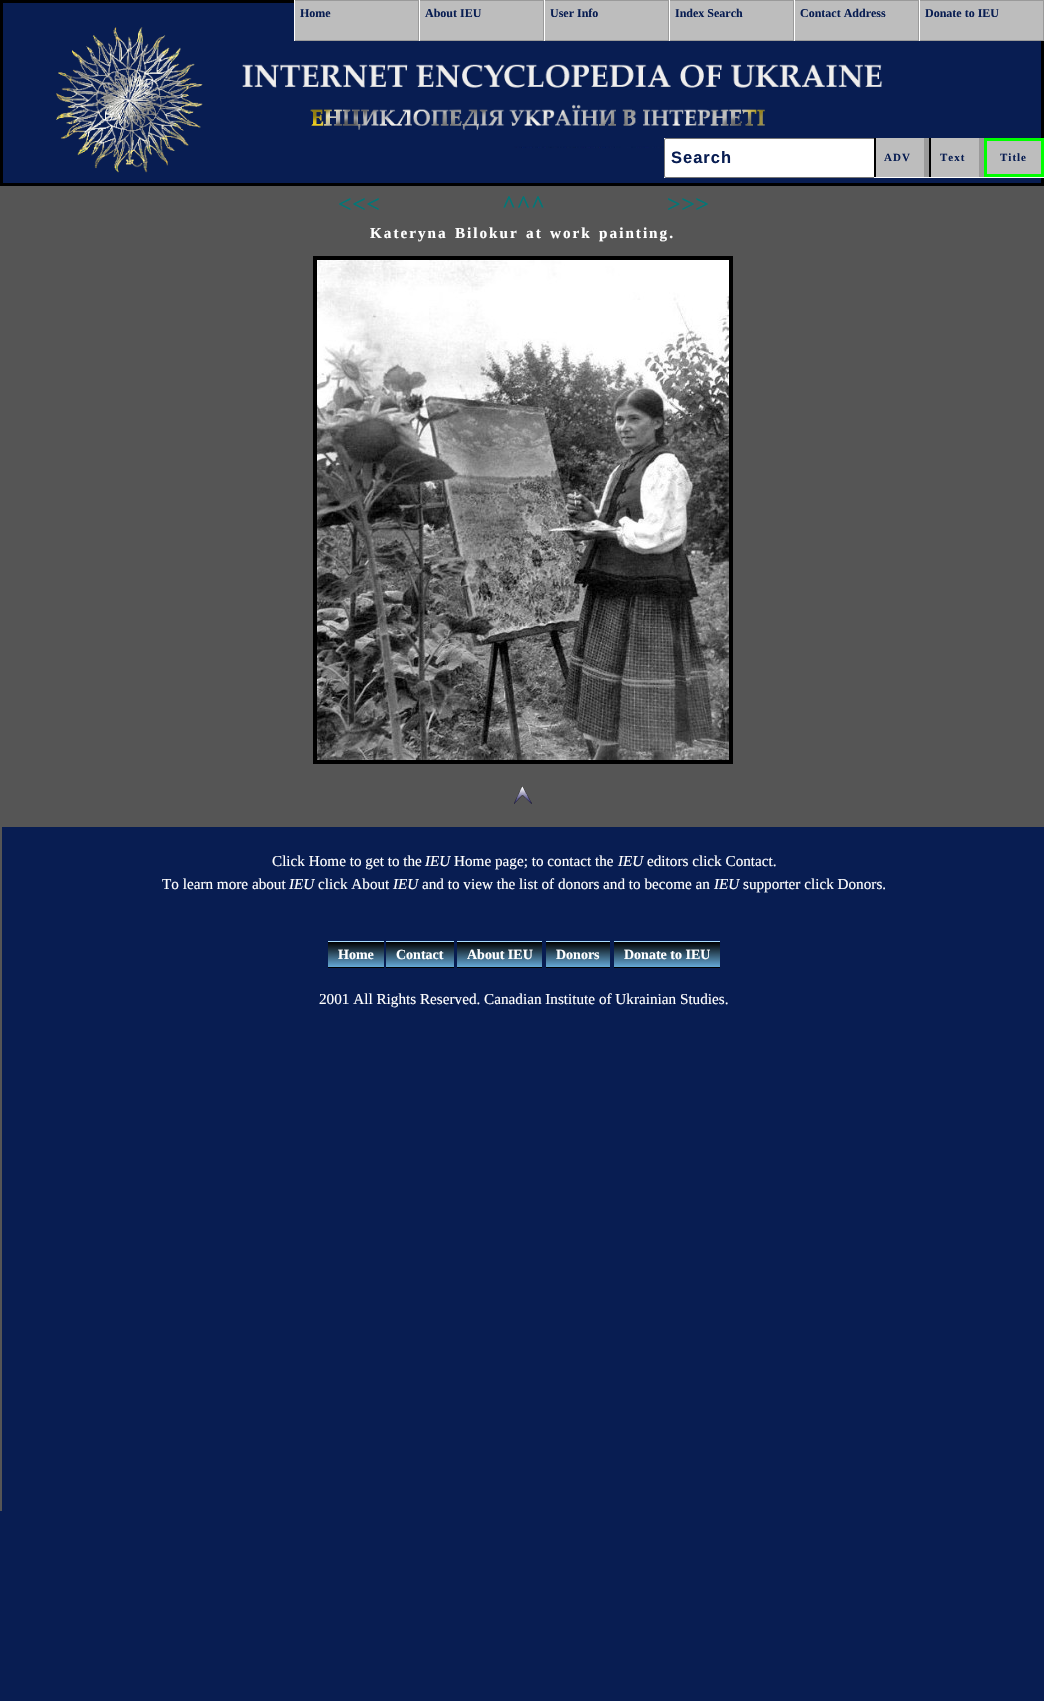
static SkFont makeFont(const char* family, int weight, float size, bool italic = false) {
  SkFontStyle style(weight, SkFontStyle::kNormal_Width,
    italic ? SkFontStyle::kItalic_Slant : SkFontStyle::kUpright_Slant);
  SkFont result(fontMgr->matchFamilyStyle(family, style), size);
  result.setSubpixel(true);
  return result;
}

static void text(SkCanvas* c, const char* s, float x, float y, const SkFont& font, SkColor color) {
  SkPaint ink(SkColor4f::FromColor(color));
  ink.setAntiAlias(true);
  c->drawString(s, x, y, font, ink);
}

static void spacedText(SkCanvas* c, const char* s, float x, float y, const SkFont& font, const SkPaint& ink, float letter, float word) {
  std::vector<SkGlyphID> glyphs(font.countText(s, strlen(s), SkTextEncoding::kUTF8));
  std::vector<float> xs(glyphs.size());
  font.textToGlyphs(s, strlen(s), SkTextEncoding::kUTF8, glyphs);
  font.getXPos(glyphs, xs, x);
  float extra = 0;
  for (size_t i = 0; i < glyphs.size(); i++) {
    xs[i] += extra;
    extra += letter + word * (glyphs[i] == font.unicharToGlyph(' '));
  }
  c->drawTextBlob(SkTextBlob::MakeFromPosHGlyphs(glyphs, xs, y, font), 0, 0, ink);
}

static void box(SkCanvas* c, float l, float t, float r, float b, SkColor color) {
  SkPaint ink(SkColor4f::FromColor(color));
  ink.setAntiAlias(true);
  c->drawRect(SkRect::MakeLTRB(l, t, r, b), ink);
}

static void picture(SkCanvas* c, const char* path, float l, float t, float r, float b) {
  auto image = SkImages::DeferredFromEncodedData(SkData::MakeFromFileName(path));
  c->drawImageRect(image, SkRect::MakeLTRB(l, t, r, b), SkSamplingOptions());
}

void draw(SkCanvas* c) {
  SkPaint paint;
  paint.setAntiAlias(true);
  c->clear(0xff081d52);
  paint.setStyle(SkPaint::kStroke_Style);
  paint.setStrokeWidth(3);
  paint.setColor(0xff000000);
  c->drawRect(SkRect::MakeLTRB(1.5f, 1.5f, 1042.5f, 184.5f), paint);
  picture(c, "img_01.png", 56, 27, 883, 173);
  box(c, 295, 1, 418, 40, 0xffbdbdbd);
  box(c, 294, 0, 1044, 1, 0xff9a9a9a);
  box(c, 418, 0, 419, 41, 0xff9a9a9a);
  box(c, 294, 40, 419, 41, 0xff9a9a9a);
  box(c, 294, 0, 295, 41, 0xffffffff);
  SkFont face1 = makeFont("Liberation Serif", 700, 12);
  text(c, "Home", 300, 17, face1, 0xff081d52);
  box(c, 420, 1, 543, 40, 0xffbdbdbd);
  box(c, 543, 0, 544, 41, 0xff9a9a9a);
  box(c, 419, 40, 544, 41, 0xff9a9a9a);
  box(c, 419, 0, 420, 41, 0xffffffff);
  text(c, "About IEU", 425, 17, face1, 0xff081d52);
  box(c, 545, 1, 668, 40, 0xffbdbdbd);
  box(c, 668, 0, 669, 41, 0xff9a9a9a);
  box(c, 544, 40, 669, 41, 0xff9a9a9a);
  box(c, 544, 0, 545, 41, 0xffffffff);
  text(c, "User Info", 550, 17, face1, 0xff081d52);
  box(c, 670, 1, 793, 40, 0xffbdbdbd);
  box(c, 793, 0, 794, 41, 0xff9a9a9a);
  box(c, 669, 40, 794, 41, 0xff9a9a9a);
  box(c, 669, 0, 670, 41, 0xffffffff);
  text(c, "Index Search", 675, 17, face1, 0xff081d52);
  box(c, 795, 1, 918, 40, 0xffbdbdbd);
  box(c, 918, 0, 919, 41, 0xff9a9a9a);
  box(c, 794, 40, 919, 41, 0xff9a9a9a);
  box(c, 794, 0, 795, 41, 0xffffffff);
  text(c, "Contact Address", 800, 17, face1, 0xff081d52);
  box(c, 920, 1, 1043, 40, 0xffbdbdbd);
  box(c, 1043, 0, 1044, 41, 0xff9a9a9a);
  box(c, 919, 40, 1044, 41, 0xff9a9a9a);
  box(c, 919, 0, 920, 41, 0xffffffff);
  text(c, "Donate to IEU", 925, 17, face1, 0xff081d52);
  box(c, 664, 138, 1044, 178, 0xffffffff);
  box(c, 876, 138, 924, 177, 0xffbdbdbd);
  box(c, 874, 138, 876, 177, 0xff000000);
  c->save();
  c->clipRect(SkRect::MakeLTRB(664, 138, 874, 178));
  paint.setStrokeWidth(1);
  paint.setColor(0xff767676);
  c->drawRoundRect(SkRect::MakeLTRB(664.5f, 138.5f, 882.5f, 177.5f), 1.5f, 1.5f, paint);
  c->restore();
  SkFont face2 = makeFont("Liberation Sans", 700, 16.5f);
  paint.setStyle(SkPaint::kFill_Style);
  paint.setColor(0xff081d52);
  spacedText(c, "Search", 671, 163, face2, paint, 1, 0);
  box(c, 924, 138, 929, 177, 0xff9a9a9a);
  SkFont face3 = makeFont("Liberation Serif", 700, 11);
  spacedText(c, "ADV", 884, 161, face3, paint, 1, 0);
  box(c, 931, 138, 979, 177, 0xffbdbdbd);
  box(c, 979, 138, 984, 177, 0xff9a9a9a);
  box(c, 929, 138, 931, 177, 0xff000000);
  spacedText(c, "Text", 940, 161, face3, paint, 1, 0);
  paint.setColor(0xffbdbdbd);
  c->drawRect(SkRect::MakeLTRB(985.5f, 139.5f, 1042.5f, 175.5f), paint);
  paint.setStyle(SkPaint::kStroke_Style);
  paint.setStrokeWidth(3);
  paint.setColor(0xff00ff00);
  c->drawRect(SkRect::MakeLTRB(985.5f, 139.5f, 1042.5f, 175.5f), paint);
  paint.setStyle(SkPaint::kFill_Style);
  paint.setColor(0xff081d52);
  spacedText(c, "Title", 1000, 161, face3, paint, 1, 0);
  box(c, 0, 186, 1044, 1511, 0xff555555);
  SkFont face4 = makeFont("Liberation Serif", 700, 24);
  paint.setColor(0xff027777);
  spacedText(c, "<<<", 338, 212, face4, paint, 0.5f, 0);
  spacedText(c, "^^^", 502, 212, face4, paint, 0.5f, 0);
  spacedText(c, ">>>", 667, 212, face4, paint, 0.5f, 0);
  SkFont face5 = makeFont("Liberation Serif", 700, 15.2f);
  paint.setColor(0xffffffff);
  spacedText(c, "Kateryna Bilokur at work painting.", 370, 238, face5, paint, 2, 1.5f);
  paint.setStyle(SkPaint::kStroke_Style);
  paint.setStrokeWidth(4);
  paint.setColor(0xff000000);
  c->drawRect(SkRect::MakeLTRB(315, 258, 731, 762), paint);
  picture(c, "img_02.png", 317, 260, 729, 760);
  picture(c, "img_03.png", 514, 786, 532, 804);
  box(c, 2, 827, 1044, 1511, 0xff081d52);
  SkFont face6 = makeFont("Liberation Serif", 400, 15.2f);
  text(c, "Click Home to get to the", 272, 866, face6, 0xffffffff);
  SkFont face7 = makeFont("Liberation Serif", 400, 15.2f, true);
  text(c, "IEU", 425, 866, face7, 0xffffffff);
  text(c, "Home page; to contact the", 454, 866, face6, 0xffffffff);
  text(c, "IEU", 618, 866, face7, 0xffffffff);
  text(c, "editors click Contact.", 647, 866, face6, 0xffffffff);
  text(c, "To learn more about", 162, 889, face6, 0xffffffff);
  text(c, "IEU", 289, 889, face7, 0xffffffff);
  text(c, "click About", 318, 889, face6, 0xffffffff);
  text(c, "IEU", 393, 889, face7, 0xffffffff);
  text(c, "and to view the list of donors and to become an", 422, 889, face6, 0xffffffff);
  text(c, "IEU", 714, 889, face7, 0xffffffff);
  text(c, "supporter click Donors.", 743, 889, face6, 0xffffffff);
  paint.setStyle(SkPaint::kFill_Style);
  {
    const SkColor colors[] = {0xff000000, 0xff65a9d7};
    const float stops[] = {0, 1};
    const SkPoint ends[] = {{356, 942}, {356, 967}};
    paint.setShader(SkGradientShader::MakeLinear(ends, colors, stops, 2, SkTileMode::kClamp));
    paint.setAlpha(255);
  }
  c->drawRect(SkRect::MakeLTRB(328, 942, 384, 967), paint);
  SkFont face8 = makeFont("Liberation Serif", 700, 14);
  text(c, "Home", 338, 959, face8, 0xffffffff);
  box(c, 328, 967, 384, 968, 0xff000000);
  box(c, 328, 941, 384, 942, 0xffabdfff);
  {
    const SkColor colors[] = {0xff000000, 0xff65a9d7};
    const float stops[] = {0, 1};
    const SkPoint ends[] = {{420, 942}, {420, 967}};
    paint.setShader(SkGradientShader::MakeLinear(ends, colors, stops, 2, SkTileMode::kClamp));
    paint.setAlpha(255);
  }
  c->drawRect(SkRect::MakeLTRB(386, 942, 454, 967), paint);
  text(c, "Contact", 396, 959, face8, 0xffffffff);
  box(c, 386, 967, 454, 968, 0xff000000);
  box(c, 386, 941, 454, 942, 0xffabdfff);
  {
    const SkColor colors[] = {0xff000000, 0xff65a9d7};
    const float stops[] = {0, 1};
    const SkPoint ends[] = {{500, 942}, {500, 967}};
    paint.setShader(SkGradientShader::MakeLinear(ends, colors, stops, 2, SkTileMode::kClamp));
    paint.setAlpha(255);
  }
  c->drawRect(SkRect::MakeLTRB(457, 942, 542, 967), paint);
  text(c, "About IEU", 467, 959, face8, 0xffffffff);
  box(c, 457, 967, 542, 968, 0xff000000);
  box(c, 457, 941, 542, 942, 0xffabdfff);
  {
    const SkColor colors[] = {0xff000000, 0xff65a9d7};
    const float stops[] = {0, 1};
    const SkPoint ends[] = {{578, 942}, {578, 967}};
    paint.setShader(SkGradientShader::MakeLinear(ends, colors, stops, 2, SkTileMode::kClamp));
    paint.setAlpha(255);
  }
  c->drawRect(SkRect::MakeLTRB(546, 942, 610, 967), paint);
  text(c, "Donors", 556, 959, face8, 0xffffffff);
  box(c, 546, 967, 610, 968, 0xff000000);
  box(c, 546, 941, 610, 942, 0xffabdfff);
  {
    const SkColor colors[] = {0xff000000, 0xff65a9d7};
    const float stops[] = {0, 1};
    const SkPoint ends[] = {{667, 942}, {667, 967}};
    paint.setShader(SkGradientShader::MakeLinear(ends, colors, stops, 2, SkTileMode::kClamp));
    paint.setAlpha(255);
  }
  c->drawRect(SkRect::MakeLTRB(614, 942, 720, 967), paint);
  text(c, "Donate to IEU", 624, 959, face8, 0xffffffff);
  box(c, 614, 967, 720, 968, 0xff000000);
  box(c, 614, 941, 720, 942, 0xffabdfff);
  text(c, "2001 All Rights Reserved. Canadian Institute of Ukrainian Studies.", 319, 1004, face6, 0xffffffff);
}
